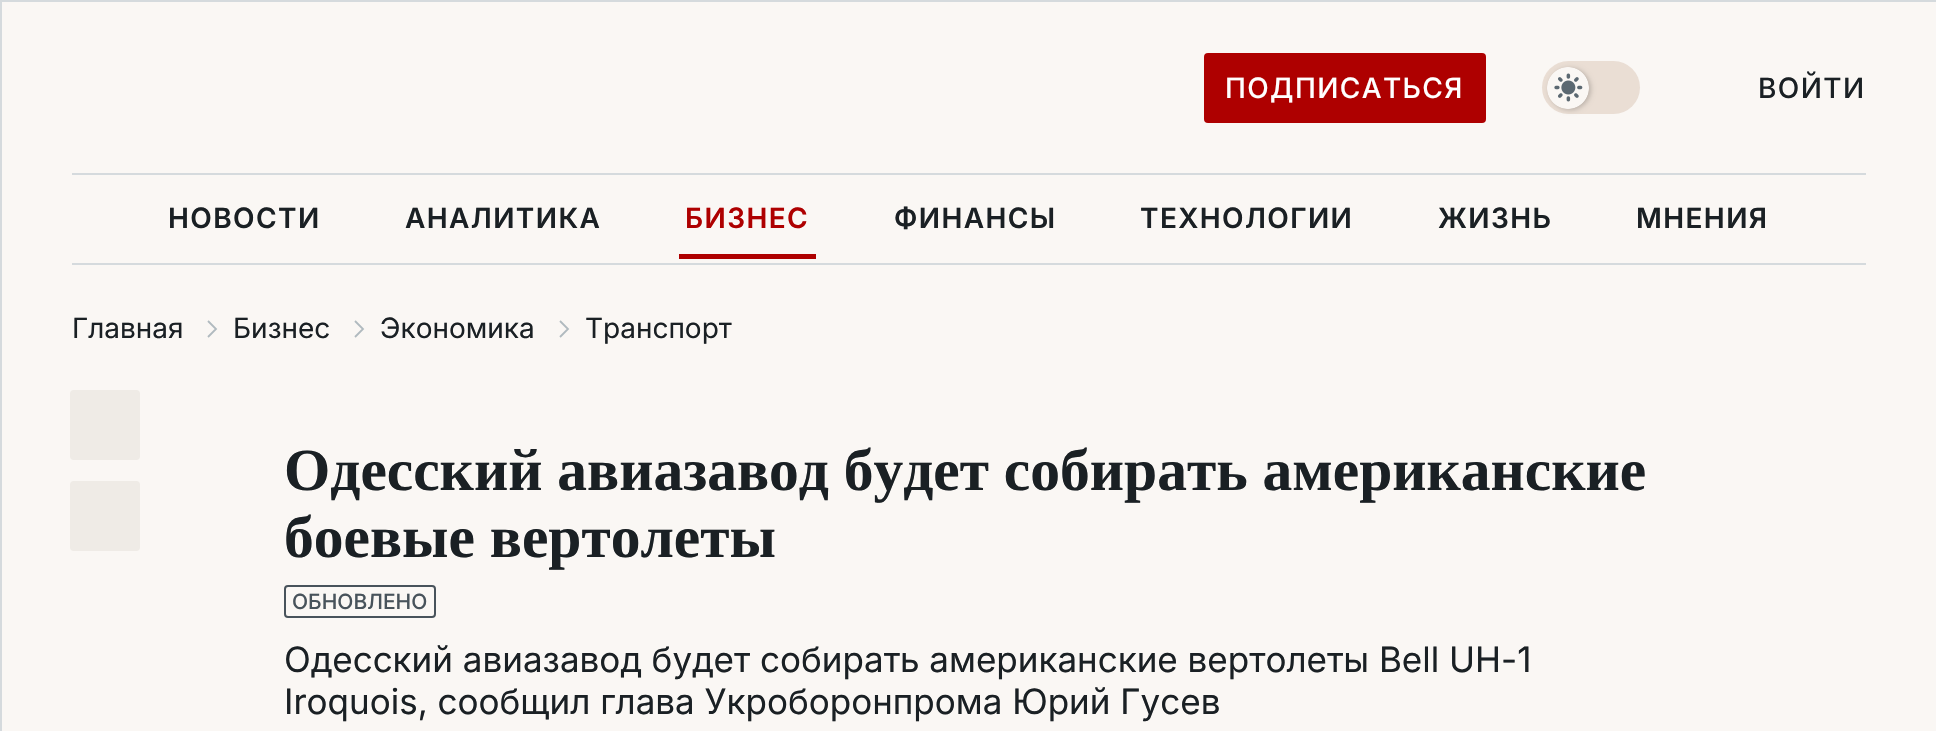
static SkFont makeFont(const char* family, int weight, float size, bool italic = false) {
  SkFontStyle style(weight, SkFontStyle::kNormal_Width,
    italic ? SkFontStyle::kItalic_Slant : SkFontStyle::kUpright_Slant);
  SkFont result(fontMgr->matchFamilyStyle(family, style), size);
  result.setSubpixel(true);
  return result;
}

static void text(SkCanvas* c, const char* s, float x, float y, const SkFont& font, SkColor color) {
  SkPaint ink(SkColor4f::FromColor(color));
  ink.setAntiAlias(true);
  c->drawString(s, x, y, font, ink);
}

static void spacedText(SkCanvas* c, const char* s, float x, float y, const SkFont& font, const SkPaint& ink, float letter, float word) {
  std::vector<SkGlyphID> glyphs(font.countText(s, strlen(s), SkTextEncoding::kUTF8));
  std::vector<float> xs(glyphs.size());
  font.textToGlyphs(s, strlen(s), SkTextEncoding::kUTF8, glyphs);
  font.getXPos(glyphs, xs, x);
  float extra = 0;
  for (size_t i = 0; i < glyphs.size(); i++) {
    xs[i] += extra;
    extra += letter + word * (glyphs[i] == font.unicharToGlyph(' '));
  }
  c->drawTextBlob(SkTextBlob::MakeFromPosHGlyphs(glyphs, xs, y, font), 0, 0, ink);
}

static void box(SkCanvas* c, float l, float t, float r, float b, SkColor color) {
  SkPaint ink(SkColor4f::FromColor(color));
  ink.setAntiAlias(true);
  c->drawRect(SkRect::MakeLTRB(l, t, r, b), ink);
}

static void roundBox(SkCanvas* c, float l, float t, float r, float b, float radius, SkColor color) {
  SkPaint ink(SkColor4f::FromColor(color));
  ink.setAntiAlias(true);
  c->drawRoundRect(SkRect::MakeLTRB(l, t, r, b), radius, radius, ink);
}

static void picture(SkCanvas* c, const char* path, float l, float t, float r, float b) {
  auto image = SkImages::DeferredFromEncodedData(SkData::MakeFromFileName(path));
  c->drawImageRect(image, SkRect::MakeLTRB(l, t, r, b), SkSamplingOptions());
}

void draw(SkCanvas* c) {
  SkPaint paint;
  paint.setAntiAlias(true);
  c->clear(0xfffaf7f4);
  box(c, 0, 0, 1936, 2, 0xffd5dadd);
  box(c, 0, 0, 2, 731, 0xffd5dadd);
  box(c, 72, 173, 1866, 175, 0xffd5dadd);
  roundBox(c, 1204, 53, 1486, 123, 4, 0xffae0000);
  SkFont face1 = makeFont("Inter", 500, 28);
  paint.setColor(0xffffffff);
  spacedText(c, "ПОДПИСАТЬСЯ", 1225, 98, face1, paint, 1.4f, 0);
  roundBox(c, 1542, 61, 1640, 114, 26.5f, 0xffeaded4);
  paint.setColor(0x33000000);
  paint.setMaskFilter(SkMaskFilter::MakeBlur(kNormal_SkBlurStyle, 2.5f));
  c->drawRoundRect(SkRect::MakeLTRB(1549, 68, 1591, 110), 21, 21, paint);
  paint.setMaskFilter(nullptr);
  picture(c, "img_01.png", 1547, 67, 1589, 109);
  paint.setColor(0xff1a2024);
  spacedText(c, "ВОЙТИ", 1758, 98, face1, paint, 1.4f, 0);
  box(c, 72, 263, 1866, 265, 0xffd5dadd);
  SkFont face2 = makeFont("Inter", 600, 28);
  spacedText(c, "НОВОСТИ", 168, 228, face2, paint, 1.4f, 0);
  spacedText(c, "АНАЛИТИКА", 405, 228, face2, paint, 1.4f, 0);
  paint.setColor(0xffae0000);
  spacedText(c, "БИЗНЕС", 685, 228, face2, paint, 1.4f, 0);
  box(c, 679, 254, 816, 259, 0xffae0000);
  paint.setColor(0xff1a2024);
  spacedText(c, "ФИНАНСЫ", 894, 228, face2, paint, 1.4f, 0);
  spacedText(c, "ТЕХНОЛОГИИ", 1140, 228, face2, paint, 1.4f, 0);
  spacedText(c, "ЖИЗНЬ", 1438, 228, face2, paint, 1.4f, 0);
  spacedText(c, "МНЕНИЯ", 1636, 228, face2, paint, 1.4f, 0);
  SkFont face3 = makeFont("Inter", 400, 28);
  text(c, "Главная", 72, 338, face3, 0xff1a2024);
  paint.setStyle(SkPaint::kStroke_Style);
  paint.setStrokeWidth(1.8f);
  paint.setColor(0xffb0babf);
  c->drawPath(SkPathBuilder().moveTo(208, 321).lineTo(216, 329).lineTo(208, 337).detach(), paint);
  text(c, "Бизнес", 233, 338, face3, 0xff1a2024);
  c->drawPath(SkPathBuilder().moveTo(355, 321).lineTo(363, 329).lineTo(355, 337).detach(), paint);
  text(c, "Экономика", 380, 338, face3, 0xff1a2024);
  c->drawPath(SkPathBuilder().moveTo(560, 321).lineTo(568, 329).lineTo(560, 337).detach(), paint);
  text(c, "Транспорт", 585, 338, face3, 0xff1a2024);
  roundBox(c, 70, 390, 140, 460, 4, 0xffefebe6);
  roundBox(c, 70, 481, 140, 551, 4, 0xffefebe6);
  SkFont face4 = makeFont("Tinos", 700, 59.5f);
  text(c, "Одесский авиазавод будет собирать американские", 284, 490, face4, 0xff1a2024);
  text(c, "боевые вертолеты", 284, 557, face4, 0xff1a2024);
  paint.setStrokeWidth(2);
  paint.setColor(0xff48535b);
  c->drawRoundRect(SkRect::MakeLTRB(285, 586, 435, 617), 3, 3, paint);
  SkFont face5 = makeFont("Inter", 500, 21);
  text(c, "ОБНОВЛЕНО", 292, 609, face5, 0xff48535b);
  SkFont face6 = makeFont("Inter", 400, 35);
  text(c, "Одесский авиазавод будет собирать американские вертолеты Bell UH-1", 284, 672, face6, 0xff1a2024);
  text(c, "Iroquois, сообщил глава Укроборонпрома Юрий Гусев", 284, 714, face6, 0xff1a2024);
}
